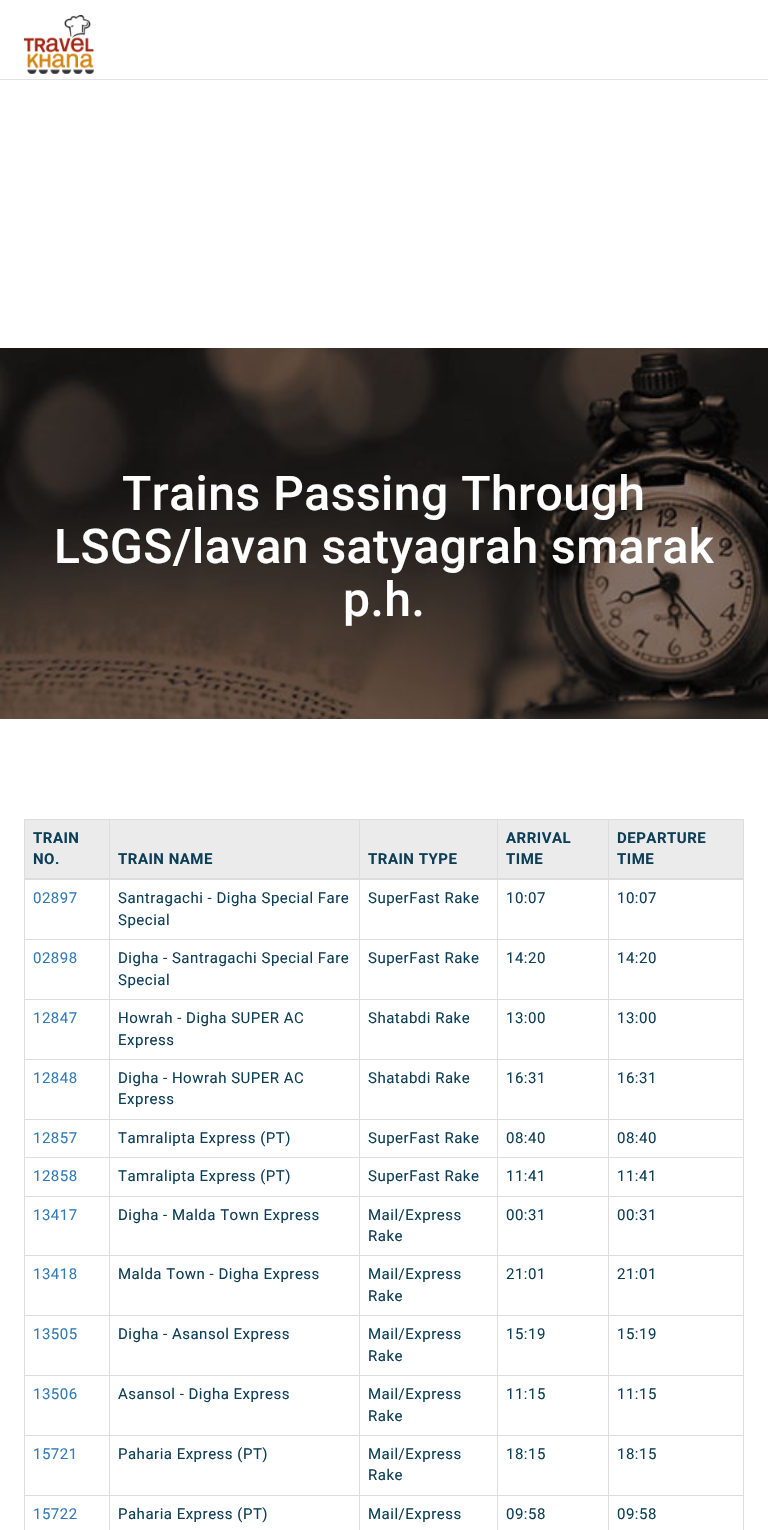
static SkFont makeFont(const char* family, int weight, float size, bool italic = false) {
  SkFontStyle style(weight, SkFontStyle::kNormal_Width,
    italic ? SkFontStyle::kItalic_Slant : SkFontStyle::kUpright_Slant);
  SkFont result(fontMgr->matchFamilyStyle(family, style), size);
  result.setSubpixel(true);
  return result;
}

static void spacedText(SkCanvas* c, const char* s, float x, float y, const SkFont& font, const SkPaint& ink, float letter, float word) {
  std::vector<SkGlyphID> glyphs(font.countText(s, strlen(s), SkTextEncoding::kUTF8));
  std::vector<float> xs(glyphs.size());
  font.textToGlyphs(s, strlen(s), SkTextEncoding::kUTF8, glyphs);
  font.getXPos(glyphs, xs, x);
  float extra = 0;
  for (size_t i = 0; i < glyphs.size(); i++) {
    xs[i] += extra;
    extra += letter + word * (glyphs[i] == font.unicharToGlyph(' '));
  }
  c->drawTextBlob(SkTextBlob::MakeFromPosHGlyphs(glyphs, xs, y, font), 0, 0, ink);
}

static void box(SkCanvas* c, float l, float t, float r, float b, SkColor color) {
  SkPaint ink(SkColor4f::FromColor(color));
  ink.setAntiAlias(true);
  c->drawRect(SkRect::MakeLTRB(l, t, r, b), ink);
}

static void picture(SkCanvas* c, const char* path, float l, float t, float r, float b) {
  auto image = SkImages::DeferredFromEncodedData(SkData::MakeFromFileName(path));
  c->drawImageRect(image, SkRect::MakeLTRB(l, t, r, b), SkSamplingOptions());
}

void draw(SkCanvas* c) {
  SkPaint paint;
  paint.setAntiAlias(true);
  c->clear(0xffffffff);
  box(c, 0, 79, 768, 80, 0xffe1e1e1);
  picture(c, "img_01.png", 24, 15, 94, 74);
  picture(c, "img_02.png", 0, 348, 768, 719);
  SkFont face1 = makeFont("Roboto", 500, 48);
  paint.setColor(0xffffffff);
  spacedText(c, "Trains Passing Through", 122, 510, face1, paint, 0.5f, 0);
  spacedText(c, "LSGS/lavan satyagrah smarak", 54, 563, face1, paint, 0.5f, 0);
  spacedText(c, "p.h.", 343, 616, face1, paint, 0.5f, 0);
  box(c, 24, 819, 744, 820, 0xffdddddd);
  box(c, 743, 819, 744, 1530, 0xffdddddd);
  box(c, 24, 819, 25, 1530, 0xffdddddd);
  box(c, 25, 820, 743, 878, 0xffebebeb);
  SkFont face2 = makeFont("Roboto", 700, 15);
  paint.setColor(0xff0d3e57);
  spacedText(c, "TRAIN", 33, 843, face2, paint, 0.5f, 0);
  spacedText(c, "NO.", 33, 864, face2, paint, 0.5f, 0);
  spacedText(c, "TRAIN NAME", 118, 864, face2, paint, 0.5f, 0);
  spacedText(c, "TRAIN TYPE", 368, 864, face2, paint, 0.5f, 0);
  spacedText(c, "ARRIVAL", 506, 843, face2, paint, 0.5f, 0);
  spacedText(c, "TIME", 506, 864, face2, paint, 0.5f, 0);
  box(c, 608, 939, 744, 940, 0xffdddddd);
  box(c, 608, 999, 744, 1000, 0xffdddddd);
  box(c, 608, 1059, 744, 1060, 0xffdddddd);
  box(c, 608, 1119, 744, 1120, 0xffdddddd);
  box(c, 608, 1157, 744, 1158, 0xffdddddd);
  box(c, 608, 1196, 744, 1197, 0xffdddddd);
  box(c, 608, 1255, 744, 1256, 0xffdddddd);
  box(c, 608, 1315, 744, 1316, 0xffdddddd);
  box(c, 608, 1375, 744, 1376, 0xffdddddd);
  box(c, 608, 1435, 744, 1436, 0xffdddddd);
  box(c, 608, 1495, 744, 1496, 0xffdddddd);
  box(c, 608, 1495, 609, 1530, 0xffdddddd);
  box(c, 497, 1495, 609, 1496, 0xffdddddd);
  box(c, 608, 1435, 609, 1496, 0xffdddddd);
  box(c, 497, 1435, 609, 1436, 0xffdddddd);
  box(c, 608, 1375, 609, 1436, 0xffdddddd);
  box(c, 497, 1375, 609, 1376, 0xffdddddd);
  box(c, 608, 1315, 609, 1376, 0xffdddddd);
  box(c, 497, 1315, 609, 1316, 0xffdddddd);
  box(c, 608, 1255, 609, 1316, 0xffdddddd);
  box(c, 497, 1255, 609, 1256, 0xffdddddd);
  box(c, 608, 1196, 609, 1256, 0xffdddddd);
  box(c, 497, 1196, 609, 1197, 0xffdddddd);
  box(c, 608, 1157, 609, 1197, 0xffdddddd);
  box(c, 497, 1157, 609, 1158, 0xffdddddd);
  box(c, 608, 1119, 609, 1158, 0xffdddddd);
  box(c, 497, 1119, 609, 1120, 0xffdddddd);
  box(c, 608, 1059, 609, 1120, 0xffdddddd);
  box(c, 497, 1059, 609, 1060, 0xffdddddd);
  box(c, 608, 999, 609, 1060, 0xffdddddd);
  box(c, 497, 999, 609, 1000, 0xffdddddd);
  box(c, 608, 939, 609, 1000, 0xffdddddd);
  box(c, 497, 939, 609, 940, 0xffdddddd);
  box(c, 497, 1495, 498, 1530, 0xffdddddd);
  box(c, 359, 1495, 498, 1496, 0xffdddddd);
  box(c, 497, 1435, 498, 1496, 0xffdddddd);
  box(c, 359, 1435, 498, 1436, 0xffdddddd);
  box(c, 497, 1375, 498, 1436, 0xffdddddd);
  box(c, 359, 1375, 498, 1376, 0xffdddddd);
  box(c, 497, 1315, 498, 1376, 0xffdddddd);
  box(c, 359, 1315, 498, 1316, 0xffdddddd);
  box(c, 497, 1255, 498, 1316, 0xffdddddd);
  box(c, 359, 1255, 498, 1256, 0xffdddddd);
  box(c, 497, 1196, 498, 1256, 0xffdddddd);
  box(c, 359, 1196, 498, 1197, 0xffdddddd);
  box(c, 497, 1157, 498, 1197, 0xffdddddd);
  box(c, 359, 1157, 498, 1158, 0xffdddddd);
  box(c, 497, 1119, 498, 1158, 0xffdddddd);
  box(c, 359, 1119, 498, 1120, 0xffdddddd);
  box(c, 497, 1059, 498, 1120, 0xffdddddd);
  box(c, 359, 1059, 498, 1060, 0xffdddddd);
  box(c, 497, 999, 498, 1060, 0xffdddddd);
  box(c, 359, 999, 498, 1000, 0xffdddddd);
  box(c, 497, 939, 498, 1000, 0xffdddddd);
  box(c, 359, 939, 498, 940, 0xffdddddd);
  box(c, 359, 1495, 360, 1530, 0xffdddddd);
  box(c, 109, 1495, 360, 1496, 0xffdddddd);
  box(c, 359, 1435, 360, 1496, 0xffdddddd);
  box(c, 109, 1435, 360, 1436, 0xffdddddd);
  box(c, 359, 1375, 360, 1436, 0xffdddddd);
  box(c, 109, 1375, 360, 1376, 0xffdddddd);
  box(c, 359, 1315, 360, 1376, 0xffdddddd);
  box(c, 109, 1315, 360, 1316, 0xffdddddd);
  box(c, 359, 1255, 360, 1316, 0xffdddddd);
  box(c, 109, 1255, 360, 1256, 0xffdddddd);
  box(c, 359, 1196, 360, 1256, 0xffdddddd);
  box(c, 109, 1196, 360, 1197, 0xffdddddd);
  box(c, 359, 1157, 360, 1197, 0xffdddddd);
  box(c, 109, 1157, 360, 1158, 0xffdddddd);
  box(c, 359, 1119, 360, 1158, 0xffdddddd);
  box(c, 109, 1119, 360, 1120, 0xffdddddd);
  box(c, 359, 1059, 360, 1120, 0xffdddddd);
  box(c, 109, 1059, 360, 1060, 0xffdddddd);
  box(c, 359, 999, 360, 1060, 0xffdddddd);
  box(c, 109, 999, 360, 1000, 0xffdddddd);
  box(c, 359, 939, 360, 1000, 0xffdddddd);
  box(c, 109, 939, 360, 940, 0xffdddddd);
  box(c, 109, 1495, 110, 1530, 0xffdddddd);
  box(c, 24, 1495, 110, 1496, 0xffdddddd);
  box(c, 109, 1435, 110, 1496, 0xffdddddd);
  box(c, 24, 1435, 110, 1436, 0xffdddddd);
  box(c, 109, 1375, 110, 1436, 0xffdddddd);
  box(c, 24, 1375, 110, 1376, 0xffdddddd);
  box(c, 109, 1315, 110, 1376, 0xffdddddd);
  box(c, 24, 1315, 110, 1316, 0xffdddddd);
  box(c, 109, 1255, 110, 1316, 0xffdddddd);
  box(c, 24, 1255, 110, 1256, 0xffdddddd);
  box(c, 109, 1196, 110, 1256, 0xffdddddd);
  box(c, 24, 1196, 110, 1197, 0xffdddddd);
  box(c, 109, 1157, 110, 1197, 0xffdddddd);
  box(c, 24, 1157, 110, 1158, 0xffdddddd);
  box(c, 109, 1119, 110, 1158, 0xffdddddd);
  box(c, 24, 1119, 110, 1120, 0xffdddddd);
  box(c, 109, 1059, 110, 1120, 0xffdddddd);
  box(c, 24, 1059, 110, 1060, 0xffdddddd);
  box(c, 109, 999, 110, 1060, 0xffdddddd);
  box(c, 24, 999, 110, 1000, 0xffdddddd);
  box(c, 109, 939, 110, 1000, 0xffdddddd);
  box(c, 24, 939, 110, 940, 0xffdddddd);
  box(c, 109, 819, 110, 940, 0xffdddddd);
  box(c, 359, 819, 360, 940, 0xffdddddd);
  box(c, 497, 819, 498, 940, 0xffdddddd);
  box(c, 608, 819, 609, 940, 0xffdddddd);
  box(c, 24, 878, 744, 880, 0xffdddddd);
  spacedText(c, "DEPARTURE", 617, 843, face2, paint, 0.5f, 0);
  spacedText(c, "TIME", 617, 864, face2, paint, 0.5f, 0);
  SkFont face3 = makeFont("Roboto", 400, 15);
  paint.setColor(0xff337ab7);
  spacedText(c, "02897", 33, 903, face3, paint, 0.5f, 0);
  paint.setColor(0xff0d3e57);
  spacedText(c, "Santragachi - Digha Special Fare", 118, 903, face3, paint, 0.5f, 0);
  spacedText(c, "Special", 118, 925, face3, paint, 0.5f, 0);
  spacedText(c, "SuperFast Rake", 368, 903, face3, paint, 0.5f, 0);
  spacedText(c, "10:07", 506, 903, face3, paint, 0.5f, 0);
  spacedText(c, "10:07", 617, 903, face3, paint, 0.5f, 0);
  paint.setColor(0xff337ab7);
  spacedText(c, "02898", 33, 963, face3, paint, 0.5f, 0);
  paint.setColor(0xff0d3e57);
  spacedText(c, "Digha - Santragachi Special Fare", 118, 963, face3, paint, 0.5f, 0);
  spacedText(c, "Special", 118, 985, face3, paint, 0.5f, 0);
  spacedText(c, "SuperFast Rake", 368, 963, face3, paint, 0.5f, 0);
  spacedText(c, "14:20", 506, 963, face3, paint, 0.5f, 0);
  spacedText(c, "14:20", 617, 963, face3, paint, 0.5f, 0);
  paint.setColor(0xff337ab7);
  spacedText(c, "12847", 33, 1023, face3, paint, 0.5f, 0);
  paint.setColor(0xff0d3e57);
  spacedText(c, "Howrah - Digha SUPER AC", 118, 1023, face3, paint, 0.5f, 0);
  spacedText(c, "Express", 118, 1045, face3, paint, 0.5f, 0);
  spacedText(c, "Shatabdi Rake", 368, 1023, face3, paint, 0.5f, 0);
  spacedText(c, "13:00", 506, 1023, face3, paint, 0.5f, 0);
  spacedText(c, "13:00", 617, 1023, face3, paint, 0.5f, 0);
  paint.setColor(0xff337ab7);
  spacedText(c, "12848", 33, 1083, face3, paint, 0.5f, 0);
  paint.setColor(0xff0d3e57);
  spacedText(c, "Digha - Howrah SUPER AC", 118, 1083, face3, paint, 0.5f, 0);
  spacedText(c, "Express", 118, 1104, face3, paint, 0.5f, 0);
  spacedText(c, "Shatabdi Rake", 368, 1083, face3, paint, 0.5f, 0);
  spacedText(c, "16:31", 506, 1083, face3, paint, 0.5f, 0);
  spacedText(c, "16:31", 617, 1083, face3, paint, 0.5f, 0);
  paint.setColor(0xff337ab7);
  spacedText(c, "12857", 33, 1143, face3, paint, 0.5f, 0);
  paint.setColor(0xff0d3e57);
  spacedText(c, "Tamralipta Express (PT)", 118, 1143, face3, paint, 0.5f, 0);
  spacedText(c, "SuperFast Rake", 368, 1143, face3, paint, 0.5f, 0);
  spacedText(c, "08:40", 506, 1143, face3, paint, 0.5f, 0);
  spacedText(c, "08:40", 617, 1143, face3, paint, 0.5f, 0);
  paint.setColor(0xff337ab7);
  spacedText(c, "12858", 33, 1181, face3, paint, 0.5f, 0);
  paint.setColor(0xff0d3e57);
  spacedText(c, "Tamralipta Express (PT)", 118, 1181, face3, paint, 0.5f, 0);
  spacedText(c, "SuperFast Rake", 368, 1181, face3, paint, 0.5f, 0);
  spacedText(c, "11:41", 506, 1181, face3, paint, 0.5f, 0);
  spacedText(c, "11:41", 617, 1181, face3, paint, 0.5f, 0);
  paint.setColor(0xff337ab7);
  spacedText(c, "13417", 33, 1220, face3, paint, 0.5f, 0);
  paint.setColor(0xff0d3e57);
  spacedText(c, "Digha - Malda Town Express", 118, 1220, face3, paint, 0.5f, 0);
  spacedText(c, "Mail/Express", 368, 1220, face3, paint, 0.5f, 0);
  spacedText(c, "Rake", 368, 1241, face3, paint, 0.5f, 0);
  spacedText(c, "00:31", 506, 1220, face3, paint, 0.5f, 0);
  spacedText(c, "00:31", 617, 1220, face3, paint, 0.5f, 0);
  paint.setColor(0xff337ab7);
  spacedText(c, "13418", 33, 1279, face3, paint, 0.5f, 0);
  paint.setColor(0xff0d3e57);
  spacedText(c, "Malda Town - Digha Express", 118, 1279, face3, paint, 0.5f, 0);
  spacedText(c, "Mail/Express", 368, 1279, face3, paint, 0.5f, 0);
  spacedText(c, "Rake", 368, 1301, face3, paint, 0.5f, 0);
  spacedText(c, "21:01", 506, 1279, face3, paint, 0.5f, 0);
  spacedText(c, "21:01", 617, 1279, face3, paint, 0.5f, 0);
  paint.setColor(0xff337ab7);
  spacedText(c, "13505", 33, 1339, face3, paint, 0.5f, 0);
  paint.setColor(0xff0d3e57);
  spacedText(c, "Digha - Asansol Express", 118, 1339, face3, paint, 0.5f, 0);
  spacedText(c, "Mail/Express", 368, 1339, face3, paint, 0.5f, 0);
  spacedText(c, "Rake", 368, 1361, face3, paint, 0.5f, 0);
  spacedText(c, "15:19", 506, 1339, face3, paint, 0.5f, 0);
  spacedText(c, "15:19", 617, 1339, face3, paint, 0.5f, 0);
  paint.setColor(0xff337ab7);
  spacedText(c, "13506", 33, 1399, face3, paint, 0.5f, 0);
  paint.setColor(0xff0d3e57);
  spacedText(c, "Asansol - Digha Express", 118, 1399, face3, paint, 0.5f, 0);
  spacedText(c, "Mail/Express", 368, 1399, face3, paint, 0.5f, 0);
  spacedText(c, "Rake", 368, 1421, face3, paint, 0.5f, 0);
  spacedText(c, "11:15", 506, 1399, face3, paint, 0.5f, 0);
  spacedText(c, "11:15", 617, 1399, face3, paint, 0.5f, 0);
  paint.setColor(0xff337ab7);
  spacedText(c, "15721", 33, 1459, face3, paint, 0.5f, 0);
  paint.setColor(0xff0d3e57);
  spacedText(c, "Paharia Express (PT)", 118, 1459, face3, paint, 0.5f, 0);
  spacedText(c, "Mail/Express", 368, 1459, face3, paint, 0.5f, 0);
  spacedText(c, "Rake", 368, 1480, face3, paint, 0.5f, 0);
  spacedText(c, "18:15", 506, 1459, face3, paint, 0.5f, 0);
  spacedText(c, "18:15", 617, 1459, face3, paint, 0.5f, 0);
  paint.setColor(0xff337ab7);
  spacedText(c, "15722", 33, 1519, face3, paint, 0.5f, 0);
  paint.setColor(0xff0d3e57);
  spacedText(c, "Paharia Express (PT)", 118, 1519, face3, paint, 0.5f, 0);
  spacedText(c, "Mail/Express", 368, 1519, face3, paint, 0.5f, 0);
  spacedText(c, "09:58", 506, 1519, face3, paint, 0.5f, 0);
  spacedText(c, "09:58", 617, 1519, face3, paint, 0.5f, 0);
}
